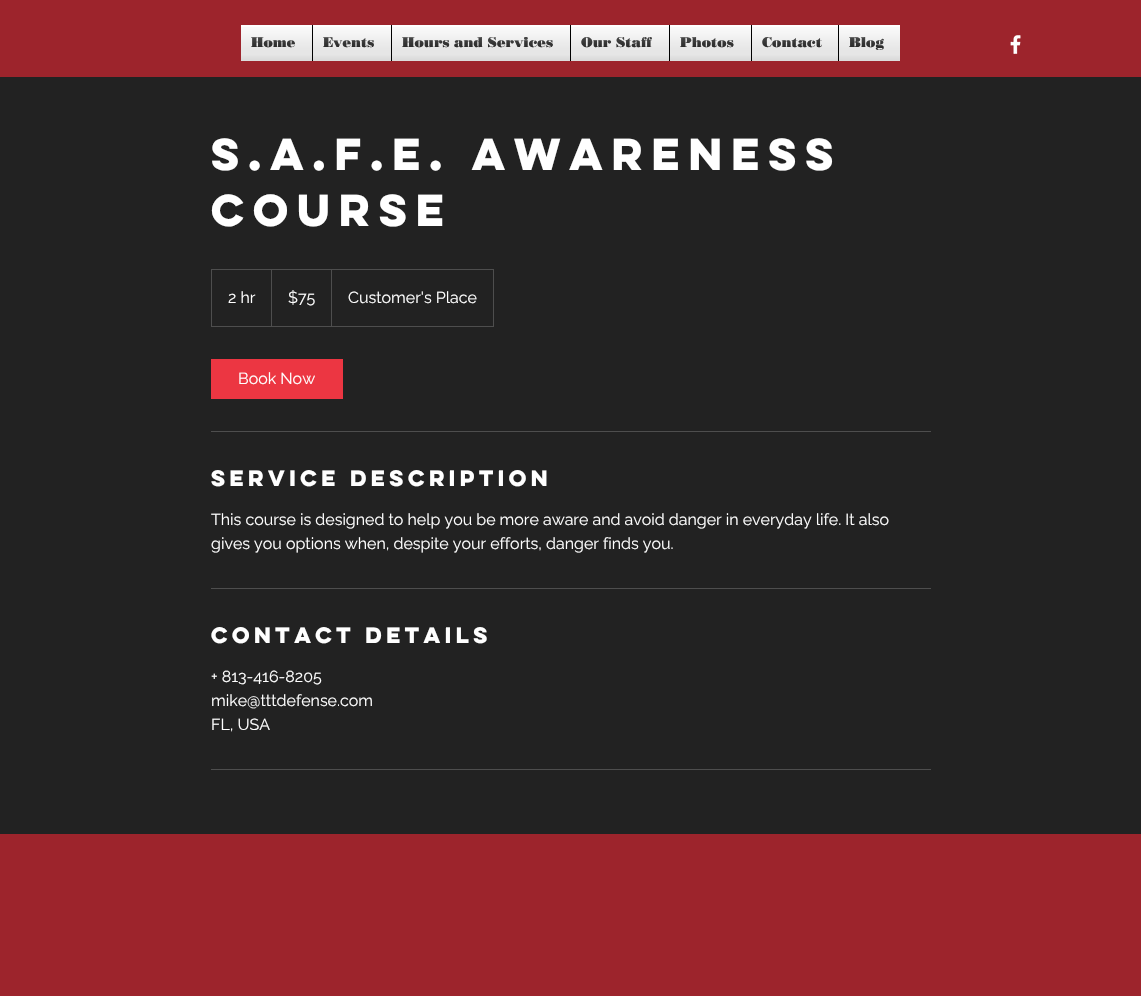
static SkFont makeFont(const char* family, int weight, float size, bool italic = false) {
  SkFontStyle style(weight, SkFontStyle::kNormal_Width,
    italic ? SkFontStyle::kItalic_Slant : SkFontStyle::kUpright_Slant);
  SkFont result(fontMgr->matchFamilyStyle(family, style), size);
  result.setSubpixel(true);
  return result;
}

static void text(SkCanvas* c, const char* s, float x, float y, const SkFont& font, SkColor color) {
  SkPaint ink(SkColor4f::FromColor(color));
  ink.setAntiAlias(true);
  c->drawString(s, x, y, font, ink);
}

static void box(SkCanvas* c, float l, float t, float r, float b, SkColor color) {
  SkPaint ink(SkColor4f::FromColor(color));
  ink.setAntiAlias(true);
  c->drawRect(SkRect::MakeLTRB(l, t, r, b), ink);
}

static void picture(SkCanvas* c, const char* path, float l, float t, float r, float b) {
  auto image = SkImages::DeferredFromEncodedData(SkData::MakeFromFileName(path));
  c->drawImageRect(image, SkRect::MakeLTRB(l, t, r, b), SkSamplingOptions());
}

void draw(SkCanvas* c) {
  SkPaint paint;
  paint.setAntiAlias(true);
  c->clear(0xff9d242c);
  box(c, 241, 25, 312, 61, 0xffffffff);
  SkFont face1 = makeFont("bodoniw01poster", 900, 14);
  text(c, "Home", 251, 47, face1, 0xff000000);
  picture(c, "img_01.png", 250, 37, 295, 48);
  picture(c, "img_02.png", 241, 27, 312, 61);
  box(c, 313, 25, 391, 61, 0xffffffff);
  box(c, 312, 25, 313, 61, 0xff000000);
  text(c, "Events", 323, 47, face1, 0xff000000);
  picture(c, "img_03.png", 322, 37, 374, 48);
  picture(c, "img_04.png", 313, 27, 391, 61);
  box(c, 392, 25, 570, 61, 0xffffffff);
  box(c, 391, 25, 392, 61, 0xff000000);
  text(c, "Hours and Services", 402, 47, face1, 0xff000000);
  picture(c, "img_05.png", 401, 37, 552, 48);
  picture(c, "img_06.png", 392, 27, 570, 61);
  box(c, 571, 25, 669, 61, 0xffffffff);
  box(c, 570, 25, 571, 61, 0xff000000);
  text(c, "Our Staff", 581, 47, face1, 0xff000000);
  picture(c, "img_07.png", 580, 37, 652, 48);
  picture(c, "img_08.png", 571, 27, 669, 61);
  box(c, 670, 25, 751, 61, 0xffffffff);
  box(c, 669, 25, 670, 61, 0xff000000);
  text(c, "Photos", 680, 47, face1, 0xff000000);
  picture(c, "img_09.png", 679, 37, 733, 48);
  picture(c, "img_10.png", 670, 27, 751, 61);
  box(c, 752, 25, 838, 61, 0xffffffff);
  box(c, 751, 25, 752, 61, 0xff000000);
  text(c, "Contact", 762, 47, face1, 0xff000000);
  picture(c, "img_11.png", 761, 37, 821, 48);
  picture(c, "img_12.png", 752, 27, 838, 61);
  box(c, 839, 25, 900, 61, 0xffffffff);
  box(c, 838, 25, 839, 61, 0xff000000);
  text(c, "Blog", 849, 47, face1, 0xff000000);
  picture(c, "img_13.png", 848, 37, 884, 50);
  picture(c, "img_14.png", 839, 27, 900, 61);
  picture(c, "img_15.png", 1010, 35, 1021, 54);
  box(c, 0, 77, 1141, 834, 0xff222222);
  SkFont face2 = makeFont("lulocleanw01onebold", 700, 40);
  text(c, "S.A.F.E. Awareness", 211, 170, face2, 0xffffffff);
  text(c, "Course", 211, 226, face2, 0xffffffff);
  paint.setStyle(SkPaint::kStroke_Style);
  paint.setStrokeWidth(1);
  paint.setColor(0xff4e4e4e);
  c->drawRect(SkRect::MakeLTRB(211.5f, 269.5f, 493.5f, 326.5f), paint);
  SkFont face3 = makeFont("Raleway", 400, 16);
  text(c, "2 hr", 228, 303, face3, 0xffffffff);
  paint.setStyle(SkPaint::kFill_Style);
  c->drawPath(SkPathBuilder().moveTo(271, 326).lineTo(271, 269).lineTo(272, 270).lineTo(272, 326).close().detach(), paint);
  text(c, "$75", 288, 303, face3, 0xffffffff);
  c->drawPath(SkPathBuilder().moveTo(331, 326).lineTo(331, 269).lineTo(332, 270).lineTo(332, 326).close().detach(), paint);
  text(c, "Customer's Place", 348, 303, face3, 0xffffffff);
  box(c, 211, 359, 343, 399, 0xffec3642);
  text(c, "Book Now", 238, 384, face3, 0xffffffff);
  box(c, 211, 431, 931, 432, 0xff4e4e4e);
  SkFont face4 = makeFont("lulocleanw01onebold", 700, 20);
  text(c, "Service Description", 211, 486, face4, 0xffffffff);
  text(c, "This course is designed to help you be more aware and avoid danger in everyday life. It also", 211, 525, face3, 0xffffffff);
  text(c, "gives you options when, despite your efforts, danger finds you.", 211, 549, face3, 0xffffffff);
  box(c, 211, 588, 931, 589, 0xff4e4e4e);
  text(c, "Contact Details", 211, 643, face4, 0xffffffff);
  text(c, "+ 813-416-8205", 211, 682, face3, 0xffffffff);
  text(c, "mike@tttdefense.com", 211, 706, face3, 0xffffffff);
  text(c, "FL, USA", 211, 730, face3, 0xffffffff);
  box(c, 211, 769, 931, 770, 0xff4e4e4e);
}
